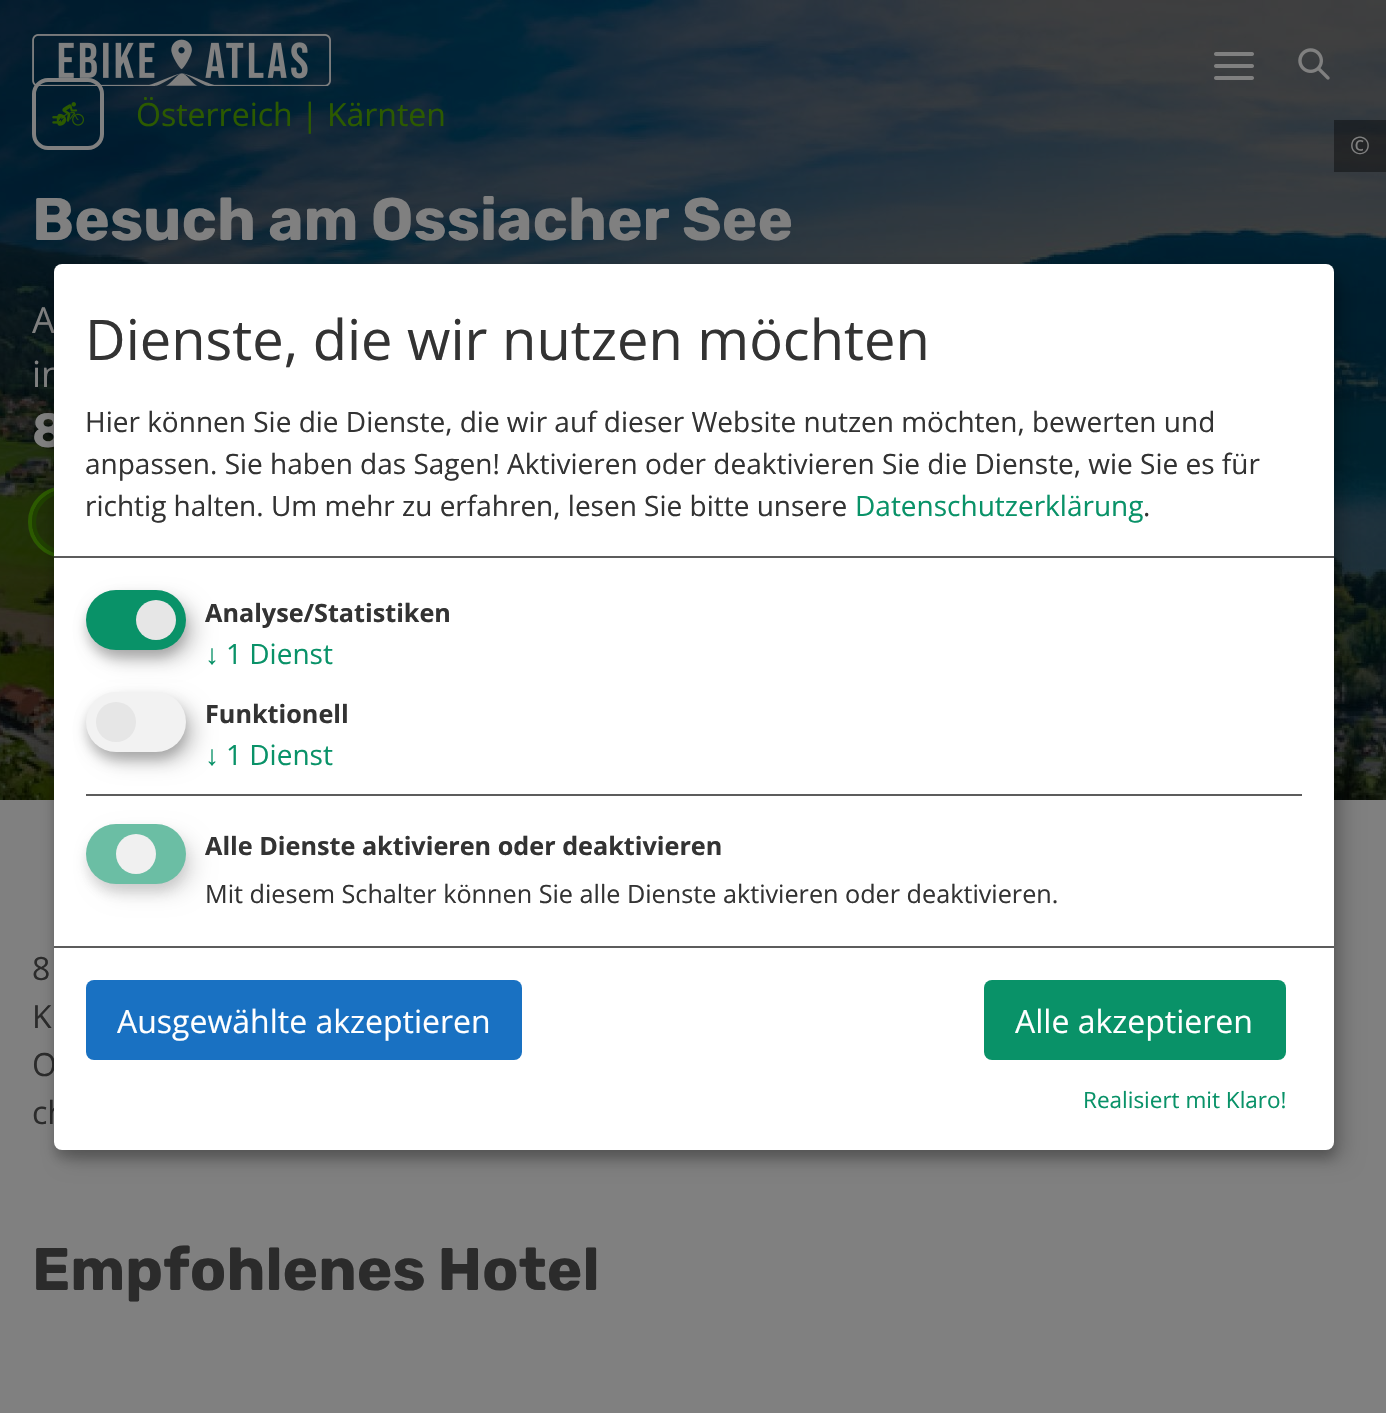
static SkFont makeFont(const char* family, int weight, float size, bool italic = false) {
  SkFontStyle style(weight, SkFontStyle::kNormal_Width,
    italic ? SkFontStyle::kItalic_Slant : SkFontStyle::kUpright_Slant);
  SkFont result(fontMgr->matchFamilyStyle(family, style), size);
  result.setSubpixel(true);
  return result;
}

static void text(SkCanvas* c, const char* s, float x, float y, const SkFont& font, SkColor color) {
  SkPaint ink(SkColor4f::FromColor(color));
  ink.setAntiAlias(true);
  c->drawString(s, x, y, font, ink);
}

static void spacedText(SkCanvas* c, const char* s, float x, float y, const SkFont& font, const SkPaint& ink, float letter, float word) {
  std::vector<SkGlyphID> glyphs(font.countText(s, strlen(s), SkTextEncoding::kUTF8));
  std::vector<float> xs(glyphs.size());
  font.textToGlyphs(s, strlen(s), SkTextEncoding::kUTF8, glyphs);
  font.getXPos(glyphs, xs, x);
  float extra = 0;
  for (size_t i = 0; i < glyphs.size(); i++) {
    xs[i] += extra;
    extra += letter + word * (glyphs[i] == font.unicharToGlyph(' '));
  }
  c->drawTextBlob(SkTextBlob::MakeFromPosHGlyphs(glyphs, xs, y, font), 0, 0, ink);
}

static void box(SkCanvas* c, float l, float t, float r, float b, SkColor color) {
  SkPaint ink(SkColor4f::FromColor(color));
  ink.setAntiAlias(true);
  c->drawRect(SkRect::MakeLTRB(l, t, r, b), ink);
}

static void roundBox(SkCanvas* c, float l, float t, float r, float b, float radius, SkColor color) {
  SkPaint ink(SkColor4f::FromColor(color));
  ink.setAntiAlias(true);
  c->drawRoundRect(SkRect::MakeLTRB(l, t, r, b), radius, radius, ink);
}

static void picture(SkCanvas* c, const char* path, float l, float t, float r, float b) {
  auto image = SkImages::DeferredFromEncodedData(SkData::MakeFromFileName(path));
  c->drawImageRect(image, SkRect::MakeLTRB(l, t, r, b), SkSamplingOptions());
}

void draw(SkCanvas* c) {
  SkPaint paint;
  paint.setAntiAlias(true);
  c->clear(0xff808080);
  picture(c, "img_05.png", 0, 0, 1386, 800);
  paint.setStyle(SkPaint::kStroke_Style);
  paint.setStrokeWidth(4);
  paint.setColor(0xff808080);
  c->drawRoundRect(SkRect::MakeLTRB(34, 80, 102, 148), 14, 14, paint);
  picture(c, "img_01.png", 32, 34, 331, 86);
  picture(c, "img_02.png", 1214, 52, 1254, 80);
  picture(c, "img_03.png", 1298, 48, 1330, 80);
  picture(c, "img_04.png", 52, 102, 84, 126);
  SkFont face1 = makeFont("Open Sans", 400, 32);
  text(c, "Österreich | Kärnten", 136, 126, face1, 0xff2c5a00);
  SkFont face2 = makeFont("Rubik", 300, 60);
  paint.setStyle(SkPaint::kFill_Style);
  spacedText(c, "Besuch am Ossiacher See", 32, 240, face2, paint, 0, -0.5f);
  SkFont face3 = makeFont("Open Sans", 400, 36);
  text(c, "A", 32, 333, face3, 0xff808080);
  text(c, "in", 32, 387, face3, 0xff808080);
  SkFont face4 = makeFont("Rubik", 300, 48);
  text(c, "8", 32, 447, face4, 0xff808080);
  paint.setStyle(SkPaint::kStroke_Style);
  paint.setColor(0xff2c5a00);
  c->drawRoundRect(SkRect::MakeLTRB(30, 488, 376, 556), 34, 34, paint);
  paint.setColor(0xff1f4000);
  c->drawRoundRect(SkRect::MakeLTRB(34, 492, 372, 552), 30, 30, paint);
  box(c, 1334, 120, 1386, 172, 0x66000000);
  SkFont face5 = makeFont("Open Sans", 400, 24);
  text(c, "©", 1350, 154, face5, 0xff808080);
  text(c, "8", 32, 980, face1, 0xff2b2b2b);
  text(c, "K", 32, 1028, face1, 0xff2b2b2b);
  text(c, "O", 32, 1076, face1, 0xff2b2b2b);
  text(c, "ch", 32, 1124, face1, 0xff2b2b2b);
  paint.setStyle(SkPaint::kFill_Style);
  paint.setColor(0xff2b2b2b);
  spacedText(c, "Empfohlenes Hotel", 32, 1290, face2, paint, 0, -1);
  paint.setColor(0x30000000);
  paint.setMaskFilter(SkMaskFilter::MakeBlur(kNormal_SkBlurStyle, 10));
  c->drawRoundRect(SkRect::MakeLTRB(64, 274, 1344, 1160), 8, 8, paint);
  paint.setMaskFilter(nullptr);
  paint.setColor(0x33000000);
  paint.setMaskFilter(SkMaskFilter::MakeBlur(kNormal_SkBlurStyle, 6));
  c->drawRoundRect(SkRect::MakeLTRB(54, 272, 1334, 1158), 8, 8, paint);
  paint.setMaskFilter(nullptr);
  roundBox(c, 54, 264, 1334, 1150, 8, 0xffffffff);
  box(c, 54, 556, 1334, 558, 0xff5c5c5c);
  SkFont face6 = makeFont("Open Sans", 400, 56);
  text(c, "Dienste, die wir nutzen möchten", 85, 360, face6, 0xff333333);
  SkFont face7 = makeFont("Open Sans", 400, 28);
  text(c, "Hier können Sie die Dienste, die wir auf dieser Website nutzen möchten, bewerten und", 85, 432, face7, 0xff333333);
  text(c, "anpassen. Sie haben das Sagen! Aktivieren oder deaktivieren Sie die Dienste, wie Sie es für", 85, 474, face7, 0xff333333);
  text(c, "richtig halten. Um mehr zu erfahren, lesen Sie bitte unsere", 85, 516, face7, 0xff333333);
  text(c, "Datenschutzerklärung", 855, 516, face7, 0xff099268);
  text(c, ".", 1143, 516, face7, 0xff333333);
  paint.setColor(0x30000000);
  paint.setMaskFilter(SkMaskFilter::MakeBlur(kNormal_SkBlurStyle, 10));
  c->drawRoundRect(SkRect::MakeLTRB(96, 600, 196, 660), 30, 30, paint);
  paint.setMaskFilter(nullptr);
  paint.setColor(0x33000000);
  paint.setMaskFilter(SkMaskFilter::MakeBlur(kNormal_SkBlurStyle, 6));
  c->drawRoundRect(SkRect::MakeLTRB(86, 598, 186, 658), 30, 30, paint);
  paint.setMaskFilter(nullptr);
  roundBox(c, 86, 590, 186, 650, 30, 0xff099268);
  paint.setColor(0xffe6e6e6);
  c->drawCircle(156, 620, 20, paint);
  SkFont face8 = makeFont("Open Sans", 700, 25.2f);
  text(c, "Analyse/Statistiken", 205, 622, face8, 0xff333333);
  SkFont face9 = makeFont("Liberation Sans", 400, 28);
  text(c, "↓", 205, 664, face9, 0xff099268);
  text(c, "1 Dienst", 226, 664, face7, 0xff099268);
  paint.setColor(0x30000000);
  paint.setMaskFilter(SkMaskFilter::MakeBlur(kNormal_SkBlurStyle, 10));
  c->drawRoundRect(SkRect::MakeLTRB(96, 702, 196, 762), 30, 30, paint);
  paint.setMaskFilter(nullptr);
  paint.setColor(0x33000000);
  paint.setMaskFilter(SkMaskFilter::MakeBlur(kNormal_SkBlurStyle, 6));
  c->drawRoundRect(SkRect::MakeLTRB(86, 700, 186, 760), 30, 30, paint);
  paint.setMaskFilter(nullptr);
  roundBox(c, 86, 692, 186, 752, 30, 0xfff2f2f2);
  paint.setColor(0xffe6e6e6);
  c->drawCircle(116, 722, 20, paint);
  text(c, "Funktionell", 205, 723, face8, 0xff333333);
  text(c, "↓", 205, 765, face9, 0xff099268);
  text(c, "1 Dienst", 226, 765, face7, 0xff099268);
  box(c, 86, 794, 1302, 796, 0xff5c5c5c);
  paint.setColor(0x1c000000);
  paint.setMaskFilter(SkMaskFilter::MakeBlur(kNormal_SkBlurStyle, 10));
  c->drawRoundRect(SkRect::MakeLTRB(96, 834, 196, 894), 30, 30, paint);
  paint.setMaskFilter(nullptr);
  paint.setColor(0x33666666);
  paint.setMaskFilter(SkMaskFilter::MakeBlur(kNormal_SkBlurStyle, 6));
  c->drawRoundRect(SkRect::MakeLTRB(86, 832, 186, 892), 30, 30, paint);
  paint.setMaskFilter(nullptr);
  roundBox(c, 86, 824, 186, 884, 30, 0xff6bbea4);
  paint.setColor(0xfff0f0f0);
  c->drawCircle(136, 854, 20, paint);
  text(c, "Alle Dienste aktivieren oder deaktivieren", 205, 855, face8, 0xff333333);
  SkFont face10 = makeFont("Open Sans", 400, 25.2f);
  text(c, "Mit diesem Schalter können Sie alle Dienste aktivieren oder deaktivieren.", 205, 903, face10, 0xff333333);
  box(c, 54, 946, 1334, 948, 0xff5c5c5c);
  roundBox(c, 86, 980, 522, 1060, 8, 0xff1971c2);
  text(c, "Ausgewählte akzeptieren", 117, 1033, face1, 0xffffffff);
  roundBox(c, 984, 980, 1286, 1060, 8, 0xff099268);
  text(c, "Alle akzeptieren", 1015, 1033, face1, 0xffffffff);
  SkFont face11 = makeFont("Open Sans", 400, 22.5f);
  text(c, "Realisiert mit Klaro!", 1083, 1108, face11, 0xff099268);
}
